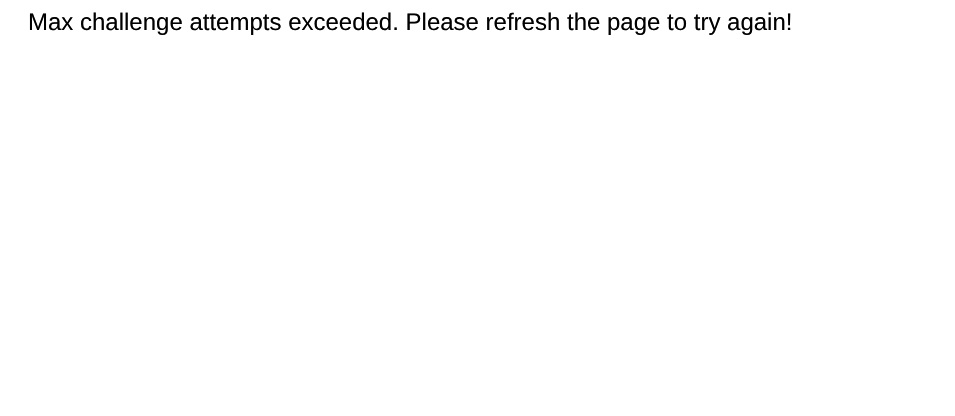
static SkFont makeFont(const char* family, int weight, float size, bool italic = false) {
  SkFontStyle style(weight, SkFontStyle::kNormal_Width,
    italic ? SkFontStyle::kItalic_Slant : SkFontStyle::kUpright_Slant);
  SkFont result(fontMgr->matchFamilyStyle(family, style), size);
  result.setSubpixel(true);
  return result;
}

static void text(SkCanvas* c, const char* s, float x, float y, const SkFont& font, SkColor color) {
  SkPaint ink(SkColor4f::FromColor(color));
  ink.setAntiAlias(true);
  c->drawString(s, x, y, font, ink);
}

void draw(SkCanvas* c) {
  SkPaint paint;
  paint.setAntiAlias(true);
  c->clear(0xffffffff);
  SkFont face1 = makeFont("Liberation Sans", 400, 24);
  text(c, "Max challenge attempts exceeded. Please refresh the page to try again!", 28, 30, face1, 0xff000000);
}
